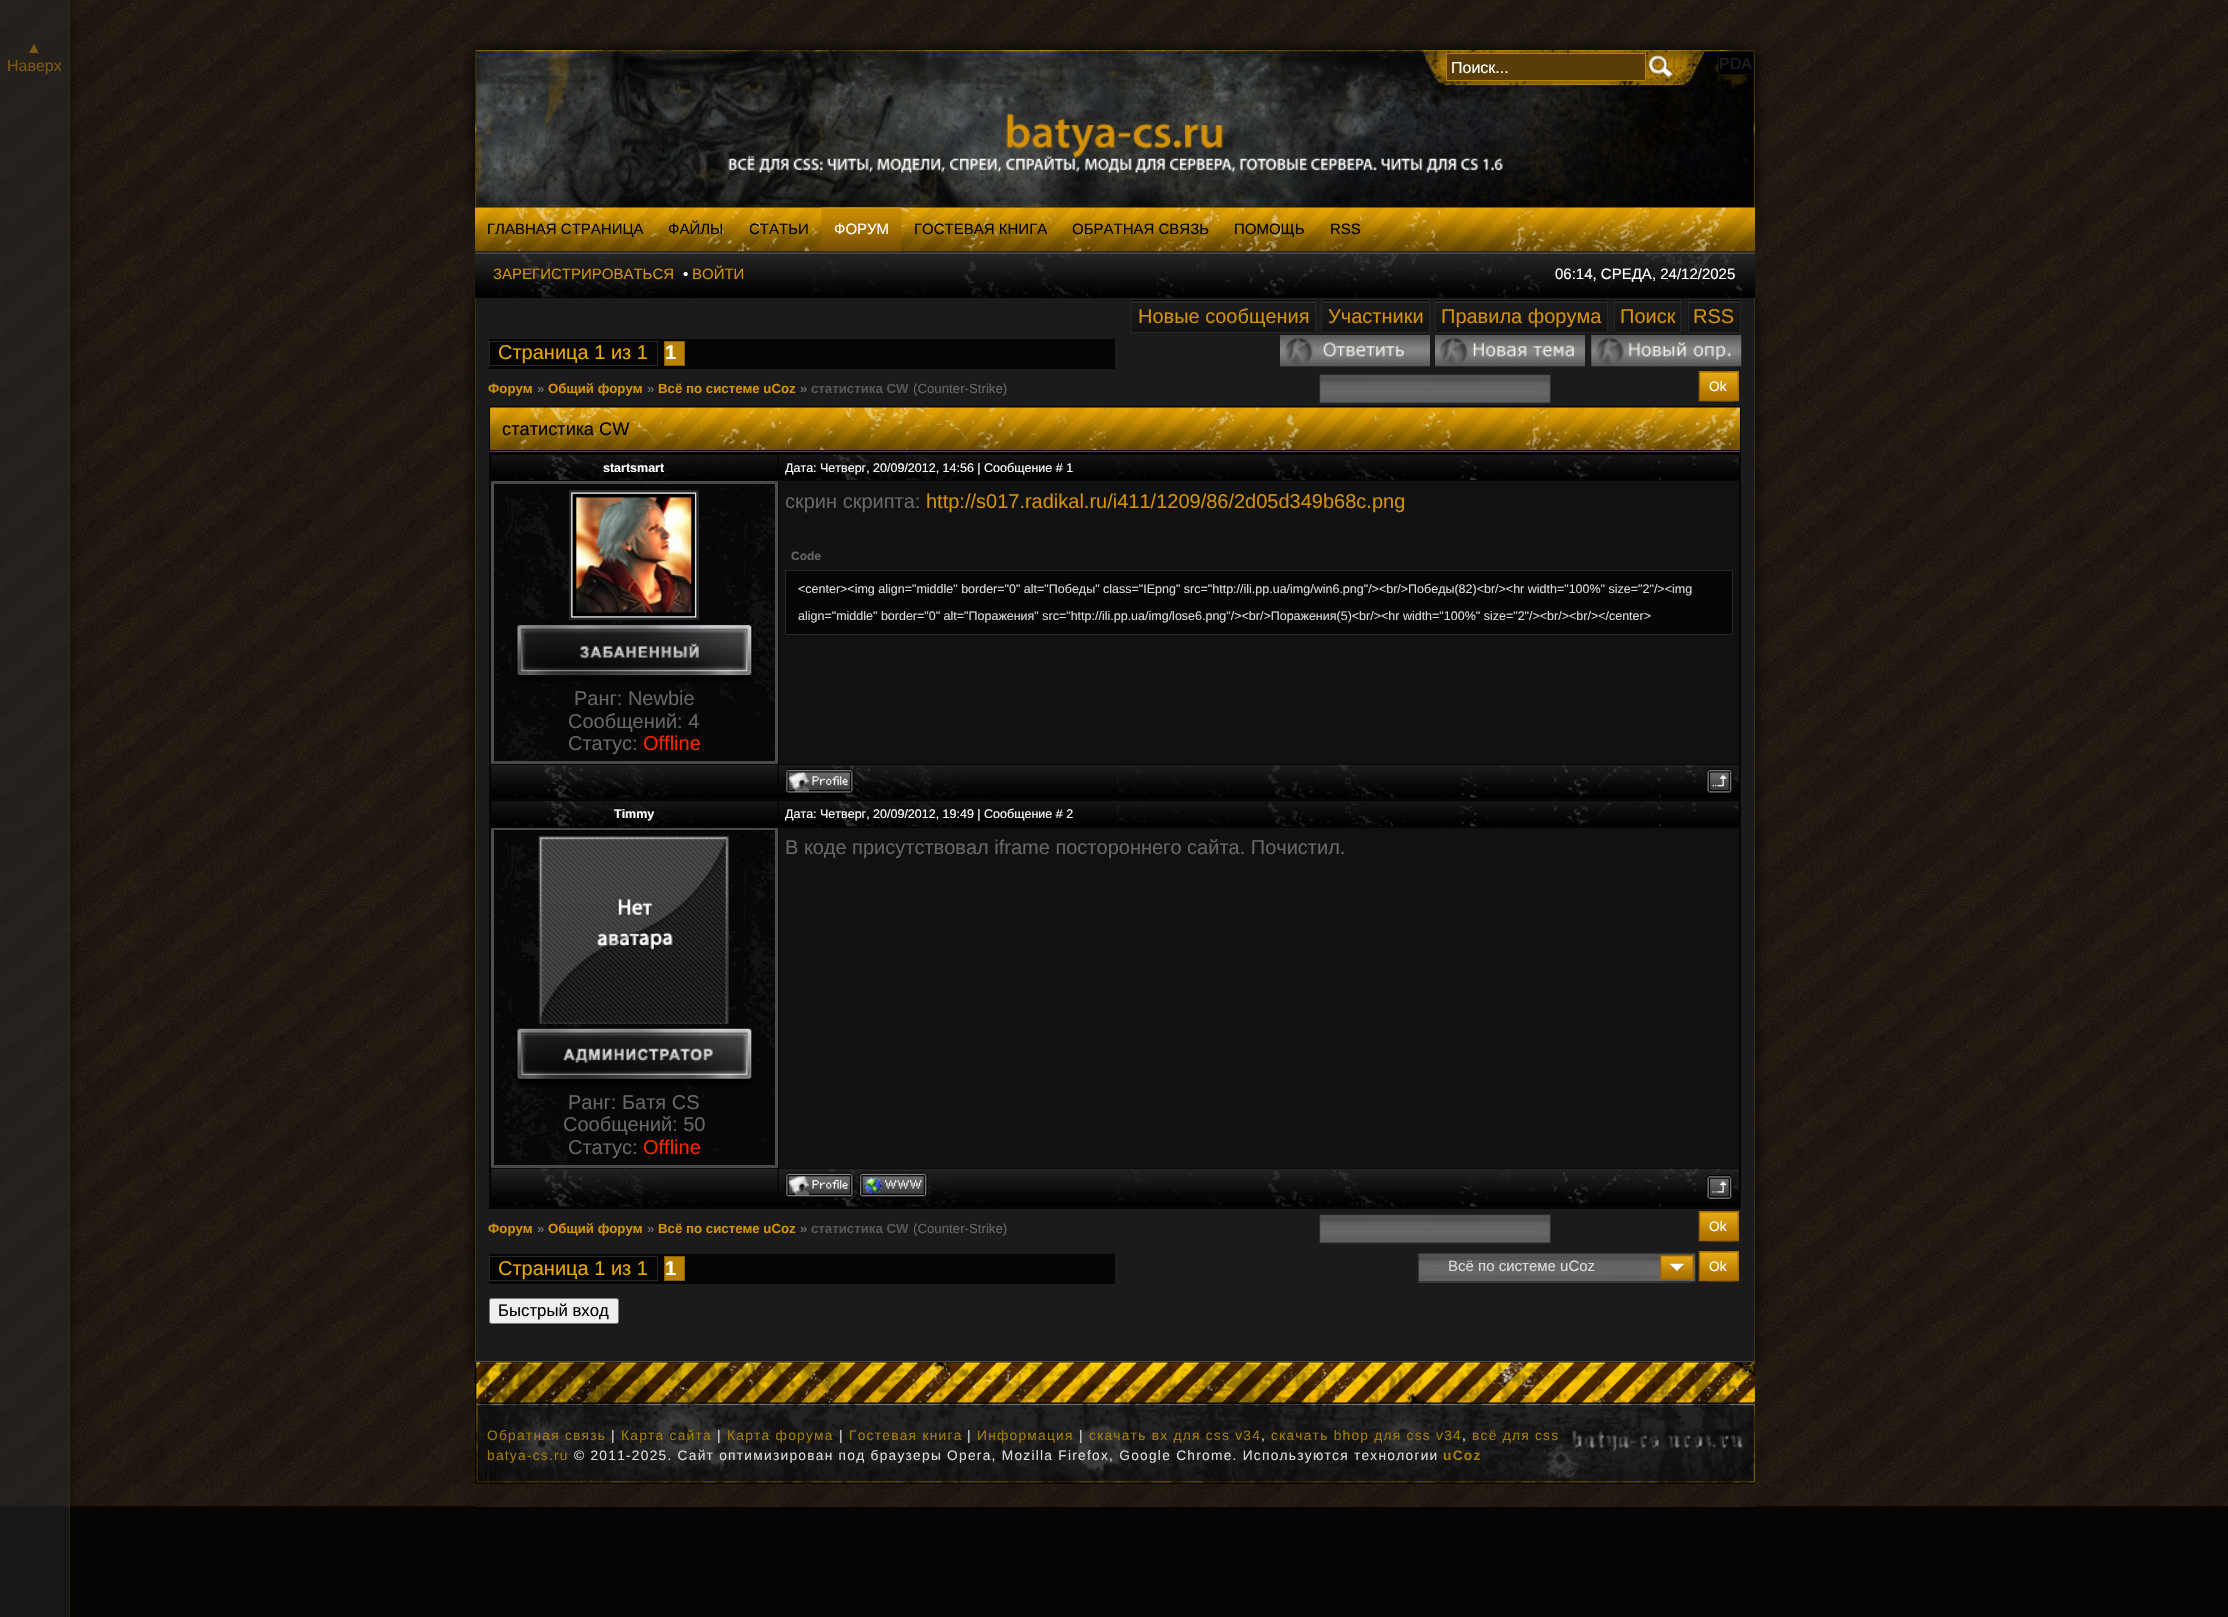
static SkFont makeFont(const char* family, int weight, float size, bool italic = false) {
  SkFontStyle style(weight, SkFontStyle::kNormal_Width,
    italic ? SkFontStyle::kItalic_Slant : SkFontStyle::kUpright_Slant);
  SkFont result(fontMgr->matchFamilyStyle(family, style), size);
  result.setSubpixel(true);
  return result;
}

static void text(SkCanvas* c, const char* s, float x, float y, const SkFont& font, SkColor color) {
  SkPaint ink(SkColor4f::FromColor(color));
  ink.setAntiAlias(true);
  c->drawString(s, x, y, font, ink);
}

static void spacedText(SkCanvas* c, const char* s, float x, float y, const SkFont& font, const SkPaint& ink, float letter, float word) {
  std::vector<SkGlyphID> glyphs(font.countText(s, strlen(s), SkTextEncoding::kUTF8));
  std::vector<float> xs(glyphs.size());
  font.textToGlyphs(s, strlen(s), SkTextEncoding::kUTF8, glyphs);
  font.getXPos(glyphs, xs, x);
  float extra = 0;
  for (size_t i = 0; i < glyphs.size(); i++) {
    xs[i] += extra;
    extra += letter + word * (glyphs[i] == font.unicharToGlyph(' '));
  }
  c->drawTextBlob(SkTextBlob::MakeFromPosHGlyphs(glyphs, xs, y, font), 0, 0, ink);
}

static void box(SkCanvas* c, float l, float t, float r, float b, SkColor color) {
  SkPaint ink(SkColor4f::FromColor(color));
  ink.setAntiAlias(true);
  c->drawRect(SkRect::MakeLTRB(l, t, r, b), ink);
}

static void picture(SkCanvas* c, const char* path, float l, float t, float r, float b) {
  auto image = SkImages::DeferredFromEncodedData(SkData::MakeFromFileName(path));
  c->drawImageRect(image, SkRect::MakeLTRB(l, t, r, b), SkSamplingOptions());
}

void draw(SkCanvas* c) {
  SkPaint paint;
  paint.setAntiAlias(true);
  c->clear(0xff050505);
  picture(c, "img_01.png", 0, 0, 2228, 1507);
  picture(c, "img_02.png", 475, 0, 1755, 1507);
  c->save();
  c->clipRect(SkRect::MakeLTRB(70, 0, 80, 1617));
  paint.setColor(0x80000000);
  paint.setMaskFilter(SkMaskFilter::MakeBlur(kNormal_SkBlurStyle, 6));
  c->drawRect(SkRect::MakeLTRB(0, -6, 70, 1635), paint);
  paint.setMaskFilter(nullptr);
  c->restore();
  box(c, 0, 0, 70, 1617, 0x80272727);
  box(c, 69, 0, 70, 1617, 0x80423201);
  SkFont face1 = makeFont("Liberation Sans", 400, 16);
  text(c, "▲", 26, 53, face1, 0xff7c5913);
  text(c, "Наверх", 7, 71, face1, 0xff7c5913);
  paint.setColor(0xff000000);
  paint.setMaskFilter(SkMaskFilter::MakeBlur(kNormal_SkBlurStyle, 6));
  c->drawRect(SkRect::MakeLTRB(475, 50, 1755, 208), paint);
  paint.setMaskFilter(nullptr);
  picture(c, "img_03.png", 475, 50, 1755, 208);
  paint.setColor(0xff593c08);
  c->drawRect(SkRect::MakeLTRB(1446.5f, 53.5f, 1645.5f, 80.5f), paint);
  paint.setStyle(SkPaint::kStroke_Style);
  paint.setStrokeWidth(1);
  paint.setColor(0xffb88000);
  c->drawRect(SkRect::MakeLTRB(1446.5f, 53.5f, 1645.5f, 80.5f), paint);
  text(c, "Поиск...", 1451, 73, face1, 0xffffffff);
  picture(c, "img_04.png", 1646, 52, 1675, 79);
  picture(c, "img_05.png", 1006, 113, 1223, 158);
  picture(c, "img_06.png", 728, 156, 756, 171);
  picture(c, "img_07.png", 758, 158, 789, 173);
  picture(c, "img_08.png", 793, 158, 823, 171);
  picture(c, "img_09.png", 827, 158, 873, 173);
  picture(c, "img_10.png", 877, 158, 946, 173);
  picture(c, "img_11.png", 949, 158, 1002, 173);
  picture(c, "img_12.png", 1006, 156, 1081, 173);
  picture(c, "img_13.png", 1084, 158, 1132, 173);
  picture(c, "img_14.png", 1135, 158, 1166, 173);
  picture(c, "img_15.png", 1169, 158, 1236, 173);
  picture(c, "img_16.png", 1239, 158, 1308, 171);
  picture(c, "img_17.png", 1311, 158, 1377, 171);
  picture(c, "img_18.png", 1381, 158, 1423, 171);
  picture(c, "img_19.png", 1426, 158, 1457, 173);
  picture(c, "img_20.png", 1461, 158, 1479, 171);
  picture(c, "img_21.png", 1482, 158, 1503, 171);
  paint.setStyle(SkPaint::kFill_Style);
  paint.setColor(0xff000000);
  c->drawRect(SkRect::MakeLTRB(1718.5f, 51.5f, 1753.5f, 74.5f), paint);
  paint.setStyle(SkPaint::kStroke_Style);
  paint.setColor(0xff111111);
  c->drawRect(SkRect::MakeLTRB(1718.5f, 51.5f, 1753.5f, 74.5f), paint);
  text(c, "PDA", 1719, 69, face1, 0xff222222);
  picture(c, "img_22.png", 475, 207, 1755, 253);
  SkFont face2 = makeFont("Liberation Sans", 400, 15);
  text(c, "ГЛАВНАЯ СТРАНИЦА", 487, 234, face2, 0xff000000);
  text(c, "ФАЙЛЫ", 668, 234, face2, 0xff000000);
  text(c, "СТАТЬИ", 749, 234, face2, 0xff000000);
  picture(c, "img_23.png", 821, 207, 902, 252);
  text(c, "ФОРУМ", 834, 234, face2, 0xffffffff);
  text(c, "ГОСТЕВАЯ КНИГА", 914, 234, face2, 0xff000000);
  text(c, "ОБРАТНАЯ СВЯЗЬ", 1072, 234, face2, 0xff000000);
  text(c, "ПОМОЩЬ", 1234, 234, face2, 0xff000000);
  text(c, "RSS", 1330, 234, face2, 0xff000000);
  box(c, 475, 297, 1755, 298, 0xff010101);
  picture(c, "img_24.png", 475, 252, 1755, 298);
  paint.setStyle(SkPaint::kFill_Style);
  paint.setColor(0xff000000);
  paint.setMaskFilter(SkMaskFilter::MakeBlur(kNormal_SkBlurStyle, 6));
  c->drawRect(SkRect::MakeLTRB(475, 298, 1755, 1363), paint);
  paint.setMaskFilter(nullptr);
  text(c, "ЗАРЕГИСТРИРОВАТЬСЯ", 493, 279, face2, 0xffd3910a);
  text(c, "•", 683, 279, face2, 0xffffffff);
  text(c, "ВОЙТИ", 692, 279, face2, 0xffd3910a);
  text(c, "06:14, СРЕДА, 24/12/2025", 1555, 279, face2, 0xffffffff);
  box(c, 476, 298, 1754, 1363, 0xff1b1b1b);
  box(c, 1754, 298, 1755, 1363, 0xff423201);
  box(c, 475, 1361, 1755, 1362, 0xff494949);
  box(c, 475, 298, 476, 1363, 0xff423201);
  picture(c, "img_25.png", 1132, 299, 1317, 333);
  picture(c, "img_26.png", 1322, 300, 1429, 332);
  picture(c, "img_27.png", 1436, 300, 1607, 332);
  picture(c, "img_28.png", 1613, 299, 1682, 333);
  picture(c, "img_29.png", 1687, 299, 1742, 333);
  paint.setStyle(SkPaint::kStroke_Style);
  paint.setColor(0xff272727);
  c->drawRect(SkRect::MakeLTRB(1131.5f, 299.5f, 1315.5f, 332.5f), paint);
  SkFont face3 = makeFont("Liberation Sans", 400, 20);
  text(c, "Новые сообщения", 1138, 323, face3, 0xffd3910a);
  c->drawRect(SkRect::MakeLTRB(1321.5f, 299.5f, 1429.5f, 332.5f), paint);
  text(c, "Участники", 1328, 323, face3, 0xffd3910a);
  c->drawRect(SkRect::MakeLTRB(1435.5f, 299.5f, 1607.5f, 332.5f), paint);
  text(c, "Правила форума", 1441, 323, face3, 0xffd3910a);
  c->drawRect(SkRect::MakeLTRB(1614.5f, 299.5f, 1680.5f, 332.5f), paint);
  text(c, "Поиск", 1620, 323, face3, 0xffd3910a);
  c->drawRect(SkRect::MakeLTRB(1688.5f, 299.5f, 1740.5f, 332.5f), paint);
  text(c, "RSS", 1693, 323, face3, 0xffd3910a);
  box(c, 489, 339, 1115, 369, 0xff050505);
  c->drawRect(SkRect::MakeLTRB(489.5f, 341.5f, 657.5f, 365.5f), paint);
  text(c, "Страница 1 из 1", 498, 359, face3, 0xffe8a902);
  paint.setStyle(SkPaint::kFill_Style);
  paint.setColor(0xffba8202);
  c->drawRect(SkRect::MakeLTRB(664.5f, 341.5f, 684.5f, 365.5f), paint);
  paint.setStyle(SkPaint::kStroke_Style);
  paint.setColor(0xff866004);
  c->drawRect(SkRect::MakeLTRB(664.5f, 341.5f, 684.5f, 365.5f), paint);
  SkFont face4 = makeFont("Liberation Sans", 700, 20);
  text(c, "1", 665, 359, face4, 0xffffffff);
  picture(c, "img_30.png", 1280, 335, 1430, 367);
  picture(c, "img_31.png", 1435, 335, 1585, 367);
  picture(c, "img_32.png", 1591, 335, 1742, 367);
  SkFont face5 = makeFont("Liberation Sans", 700, 13.25f);
  text(c, "Форум", 488, 393, face5, 0xffd3910a);
  text(c, "»", 537, 393, face5, 0xff666666);
  text(c, "Общий форум", 548, 393, face5, 0xffd3910a);
  text(c, "»", 647, 393, face5, 0xff666666);
  text(c, "Всё по системе uCoz", 658, 393, face5, 0xffd3910a);
  text(c, "»", 800, 393, face5, 0xff666666);
  text(c, "статистика CW", 811, 393, face5, 0xff555555);
  SkFont face6 = makeFont("Liberation Sans", 400, 13.25f);
  text(c, "(Counter-Strike)", 913, 393, face6, 0xff666666);
  picture(c, "img_33.png", 1507, 374, 1551, 404);
  picture(c, "img_34.png", 1319, 374, 1508, 404);
  picture(c, "img_35.png", 1329, 374, 1546, 404);
  box(c, 1699, 371, 1739, 401, 0xffd8a000);
  picture(c, "img_36.png", 1720, 371, 1739, 402);
  picture(c, "img_37.png", 1698, 371, 1734, 402);
  picture(c, "img_38.png", 1708, 371, 1734, 402);
  SkFont face7 = makeFont("Liberation Sans", 400, 13.75f);
  text(c, "Ok", 1709, 391, face7, 0xffffffff);
  box(c, 489, 406, 1741, 1209, 0xff050505);
  picture(c, "img_39.png", 490, 407, 1740, 450);
  SkFont face8 = makeFont("Liberation Sans", 400, 18.25f);
  text(c, "статистика CW", 502, 435, face8, 0xff000000);
  box(c, 490, 451, 1740, 452, 0xff6f4f00);
  box(c, 491, 455, 778, 480, 0xff010101);
  picture(c, "img_40.png", 491, 455, 778, 480);
  SkFont face9 = makeFont("Liberation Sans", 700, 12.5f);
  text(c, "startsmart", 603, 472, face9, 0xffffffff);
  picture(c, "img_41.png", 779, 455, 1739, 480);
  SkFont face10 = makeFont("Liberation Sans", 400, 12.5f);
  text(c, "Дата: Четверг, 20/09/2012, 14:56 | Сообщение # 1", 785, 472, face10, 0xffffffff);
  box(c, 779, 481, 1739, 764, 0xff111111);
  text(c, "скрин скрипта:", 785, 508, face3, 0xff666666);
  text(c, "http://s017.radikal.ru/i411/1209/86/2d05d349b68c.png", 926, 508, face3, 0xffd3910a);
  SkFont face11 = makeFont("Liberation Sans", 700, 12);
  text(c, "Code", 791, 560, face11, 0xff666666);
  paint.setStyle(SkPaint::kFill_Style);
  paint.setColor(0xff050505);
  c->drawRect(SkRect::MakeLTRB(785.5f, 570.5f, 1732.5f, 634.5f), paint);
  paint.setStyle(SkPaint::kStroke_Style);
  paint.setColor(0xff272727);
  c->drawRect(SkRect::MakeLTRB(785.5f, 570.5f, 1732.5f, 634.5f), paint);
  text(c, "<center><img align=\"middle\" border=\"0\" alt=\"Победы\" class=\"IEpng\" src=\"http://ili.pp.ua/img/win6.png\"/><br/>Победы(82)<br/><hr width=\"100%\" size=\"2\"/><img", 798, 593, face10, 0xffdadada);
  text(c, "align=\"middle\" border=\"0\" alt=\"Поражения\" src=\"http://ili.pp.ua/img/lose6.png\"/><br/>Поражения(5)<br/><hr width=\"100%\" size=\"2\"/><br/><br/></center>", 798, 620, face10, 0xffdadada);
  picture(c, "img_42.png", 491, 484, 778, 764);
  paint.setStyle(SkPaint::kFill_Style);
  paint.setColor(0xff494949);
  c->drawPath(SkPathBuilder().moveTo(491, 481).lineTo(778, 481).lineTo(775, 484).lineTo(494, 484).close().detach(), paint);
  paint.setColor(0xff4f4f4f);
  c->drawPath(SkPathBuilder().moveTo(778, 481).lineTo(778, 764).lineTo(775, 761).lineTo(775, 484).close().detach(), paint);
  paint.setColor(0xff494949);
  c->drawPath(SkPathBuilder().moveTo(778, 764).lineTo(491, 764).lineTo(494, 761).lineTo(775, 761).close().detach(), paint);
  paint.setColor(0xff4f4f4f);
  c->drawPath(SkPathBuilder().moveTo(491, 764).lineTo(491, 481).lineTo(494, 484).lineTo(494, 761).close().detach(), paint);
  paint.setStyle(SkPaint::kStroke_Style);
  paint.setStrokeWidth(3);
  paint.setColor(0xff272727);
  c->drawRect(SkRect::MakeLTRB(570.5f, 491.5f, 697.5f, 618.5f), paint);
  picture(c, "img_43.png", 571, 492, 697, 618);
  picture(c, "img_44.png", 516, 623, 753, 683);
  text(c, "Ранг: Newbie", 574, 705, face3, 0xff666666);
  text(c, "Сообщений: 4", 568, 728, face3, 0xff666666);
  text(c, "Статус:", 568, 750, face3, 0xff666666);
  text(c, "Offline", 643, 750, face3, 0xffff2400);
  box(c, 491, 765, 778, 798, 0xff010101);
  picture(c, "img_45.png", 491, 765, 778, 798);
  box(c, 779, 765, 1739, 798, 0xff010101);
  picture(c, "img_46.png", 778, 765, 1739, 798);
  picture(c, "img_47.png", 785, 768, 854, 794);
  picture(c, "img_48.png", 1706, 768, 1733, 793);
  box(c, 491, 801, 778, 826, 0xff010101);
  picture(c, "img_49.png", 491, 801, 778, 827);
  text(c, "Timmy", 614, 818, face9, 0xffffffff);
  box(c, 779, 801, 1739, 826, 0xff010101);
  picture(c, "img_50.png", 779, 801, 1739, 827);
  text(c, "Дата: Четверг, 20/09/2012, 19:49 | Сообщение # 2", 785, 818, face10, 0xffffffff);
  box(c, 779, 828, 1739, 1168, 0xff111111);
  text(c, "В коде присутствовал iframe постороннего сайта. Почистил.", 785, 854, face3, 0xff666666);
  picture(c, "img_51.png", 491, 830, 778, 1168);
  paint.setStyle(SkPaint::kFill_Style);
  paint.setColor(0xff494949);
  c->drawPath(SkPathBuilder().moveTo(491, 828).lineTo(778, 828).lineTo(775, 830).lineTo(494, 830).close().detach(), paint);
  paint.setColor(0xff4f4f4f);
  c->drawPath(SkPathBuilder().moveTo(778, 828).lineTo(778, 1168).lineTo(775, 1165).lineTo(775, 830).close().detach(), paint);
  paint.setColor(0xff494949);
  c->drawPath(SkPathBuilder().moveTo(778, 1168).lineTo(491, 1168).lineTo(494, 1165).lineTo(775, 1165).close().detach(), paint);
  paint.setColor(0xff4f4f4f);
  c->drawPath(SkPathBuilder().moveTo(491, 1168).lineTo(491, 828).lineTo(494, 830).lineTo(494, 1165).close().detach(), paint);
  picture(c, "img_52.png", 538, 836, 729, 1024);
  picture(c, "img_53.png", 515, 1027, 753, 1087);
  text(c, "Ранг: Батя CS", 568, 1109, face3, 0xff666666);
  text(c, "Сообщений: 50", 563, 1131, face3, 0xff666666);
  text(c, "Статус:", 568, 1154, face3, 0xff666666);
  text(c, "Offline", 643, 1154, face3, 0xffff2400);
  box(c, 491, 1169, 778, 1206, 0xff010101);
  picture(c, "img_54.png", 491, 1168, 778, 1207);
  picture(c, "img_55.png", 778, 1168, 1739, 1207);
  picture(c, "img_56.png", 785, 1172, 854, 1198);
  picture(c, "img_57.png", 858, 1172, 928, 1198);
  picture(c, "img_58.png", 1706, 1175, 1733, 1199);
  text(c, "Форум", 488, 1233, face5, 0xffd3910a);
  text(c, "»", 537, 1233, face5, 0xff666666);
  text(c, "Общий форум", 548, 1233, face5, 0xffd3910a);
  text(c, "»", 647, 1233, face5, 0xff666666);
  text(c, "Всё по системе uCoz", 658, 1233, face5, 0xffd3910a);
  text(c, "»", 800, 1233, face5, 0xff666666);
  text(c, "статистика CW", 811, 1233, face5, 0xff555555);
  text(c, "(Counter-Strike)", 913, 1233, face6, 0xff666666);
  picture(c, "img_33.png", 1507, 1214, 1551, 1244);
  picture(c, "img_34.png", 1319, 1214, 1508, 1244);
  picture(c, "img_35.png", 1329, 1214, 1546, 1244);
  box(c, 1699, 1211, 1739, 1241, 0xffd8a000);
  picture(c, "img_36.png", 1720, 1211, 1739, 1242);
  picture(c, "img_37.png", 1698, 1211, 1734, 1242);
  picture(c, "img_38.png", 1708, 1211, 1734, 1242);
  text(c, "Ok", 1709, 1231, face7, 0xffffffff);
  box(c, 489, 1254, 1115, 1284, 0xff050505);
  paint.setStyle(SkPaint::kStroke_Style);
  paint.setStrokeWidth(1);
  paint.setColor(0xff272727);
  c->drawRect(SkRect::MakeLTRB(489.5f, 1256.5f, 657.5f, 1280.5f), paint);
  text(c, "Страница 1 из 1", 498, 1275, face3, 0xffe8a902);
  paint.setStyle(SkPaint::kFill_Style);
  paint.setColor(0xffba8202);
  c->drawRect(SkRect::MakeLTRB(664.5f, 1256.5f, 684.5f, 1280.5f), paint);
  paint.setStyle(SkPaint::kStroke_Style);
  paint.setColor(0xff866004);
  c->drawRect(SkRect::MakeLTRB(664.5f, 1256.5f, 684.5f, 1280.5f), paint);
  text(c, "1", 665, 1275, face4, 0xffffffff);
  box(c, 1418, 1282, 1691, 1283, 0xff535353);
  picture(c, "img_59.png", 1417, 1252, 1692, 1283);
  text(c, "Всё по системе uCoz", 1448, 1271, face2, 0xffdadada);
  picture(c, "img_60.png", 1659, 1252, 1696, 1283);
  box(c, 1699, 1251, 1739, 1281, 0xffd8a000);
  picture(c, "img_36.png", 1720, 1251, 1739, 1282);
  picture(c, "img_37.png", 1698, 1251, 1734, 1282);
  picture(c, "img_38.png", 1708, 1251, 1734, 1282);
  text(c, "Ok", 1709, 1271, face7, 0xffffffff);
  paint.setStyle(SkPaint::kFill_Style);
  paint.setColor(0xffefefef);
  c->drawRoundRect(SkRect::MakeLTRB(489.5f, 1298.5f, 618.5f, 1323.5f), 2, 2, paint);
  paint.setStyle(SkPaint::kStroke_Style);
  paint.setColor(0xff767676);
  c->drawRoundRect(SkRect::MakeLTRB(489.5f, 1298.5f, 618.5f, 1323.5f), 2, 2, paint);
  SkFont face12 = makeFont("Liberation Sans", 400, 16.75f);
  text(c, "Быстрый вход", 498, 1316, face12, 0xff000000);
  picture(c, "img_61.png", 475, 1362, 1755, 1484);
  paint.setStyle(SkPaint::kFill_Style);
  paint.setColor(0xffa47d02);
  spacedText(c, "Обратная связь", 487, 1440, face7, paint, 1.25f, 0);
  paint.setColor(0xffdadada);
  spacedText(c, "|", 611, 1440, face7, paint, 1.25f, 0);
  paint.setColor(0xffa47d02);
  spacedText(c, "Карта сайта", 621, 1440, face7, paint, 1.25f, 0);
  paint.setColor(0xffdadada);
  spacedText(c, "|", 717, 1440, face7, paint, 1.25f, 0);
  paint.setColor(0xffa47d02);
  spacedText(c, "Карта форума", 727, 1440, face7, paint, 1.25f, 0);
  paint.setColor(0xffdadada);
  spacedText(c, "|", 839, 1440, face7, paint, 1.25f, 0);
  paint.setColor(0xffa47d02);
  spacedText(c, "Гостевая книга", 849, 1440, face7, paint, 1.25f, 0);
  paint.setColor(0xffdadada);
  spacedText(c, "|", 967, 1440, face7, paint, 1.25f, 0);
  paint.setColor(0xffa47d02);
  spacedText(c, "Информация", 977, 1440, face7, paint, 1.25f, 0);
  paint.setColor(0xffdadada);
  spacedText(c, "|", 1079, 1440, face7, paint, 1.25f, 0);
  paint.setColor(0xffa47d02);
  spacedText(c, "скачать вх для css v34", 1089, 1440, face7, paint, 1.25f, 0);
  paint.setColor(0xffdadada);
  spacedText(c, ",", 1261, 1440, face7, paint, 1.25f, 0);
  paint.setColor(0xffa47d02);
  spacedText(c, "скачать bhop для css v34", 1271, 1440, face7, paint, 1.25f, 0);
  paint.setColor(0xffdadada);
  spacedText(c, ",", 1462, 1440, face7, paint, 1.25f, 0);
  paint.setColor(0xffa47d02);
  spacedText(c, "всё для css", 1472, 1440, face7, paint, 1.25f, 0);
  spacedText(c, "batya-cs.ru", 487, 1460, face7, paint, 1.25f, 0);
  paint.setColor(0xffdadada);
  spacedText(c, "© 2011-2025. Сайт оптимизирован под браузеры Opera, Mozilla Firefox, Google Chrome. Используются технологии", 574, 1460, face7, paint, 1.25f, 0);
  SkFont face13 = makeFont("Liberation Sans", 700, 13.75f);
  paint.setColor(0xffa47d02);
  spacedText(c, "uCoz", 1443, 1460, face13, paint, 1.25f, 0);
}
